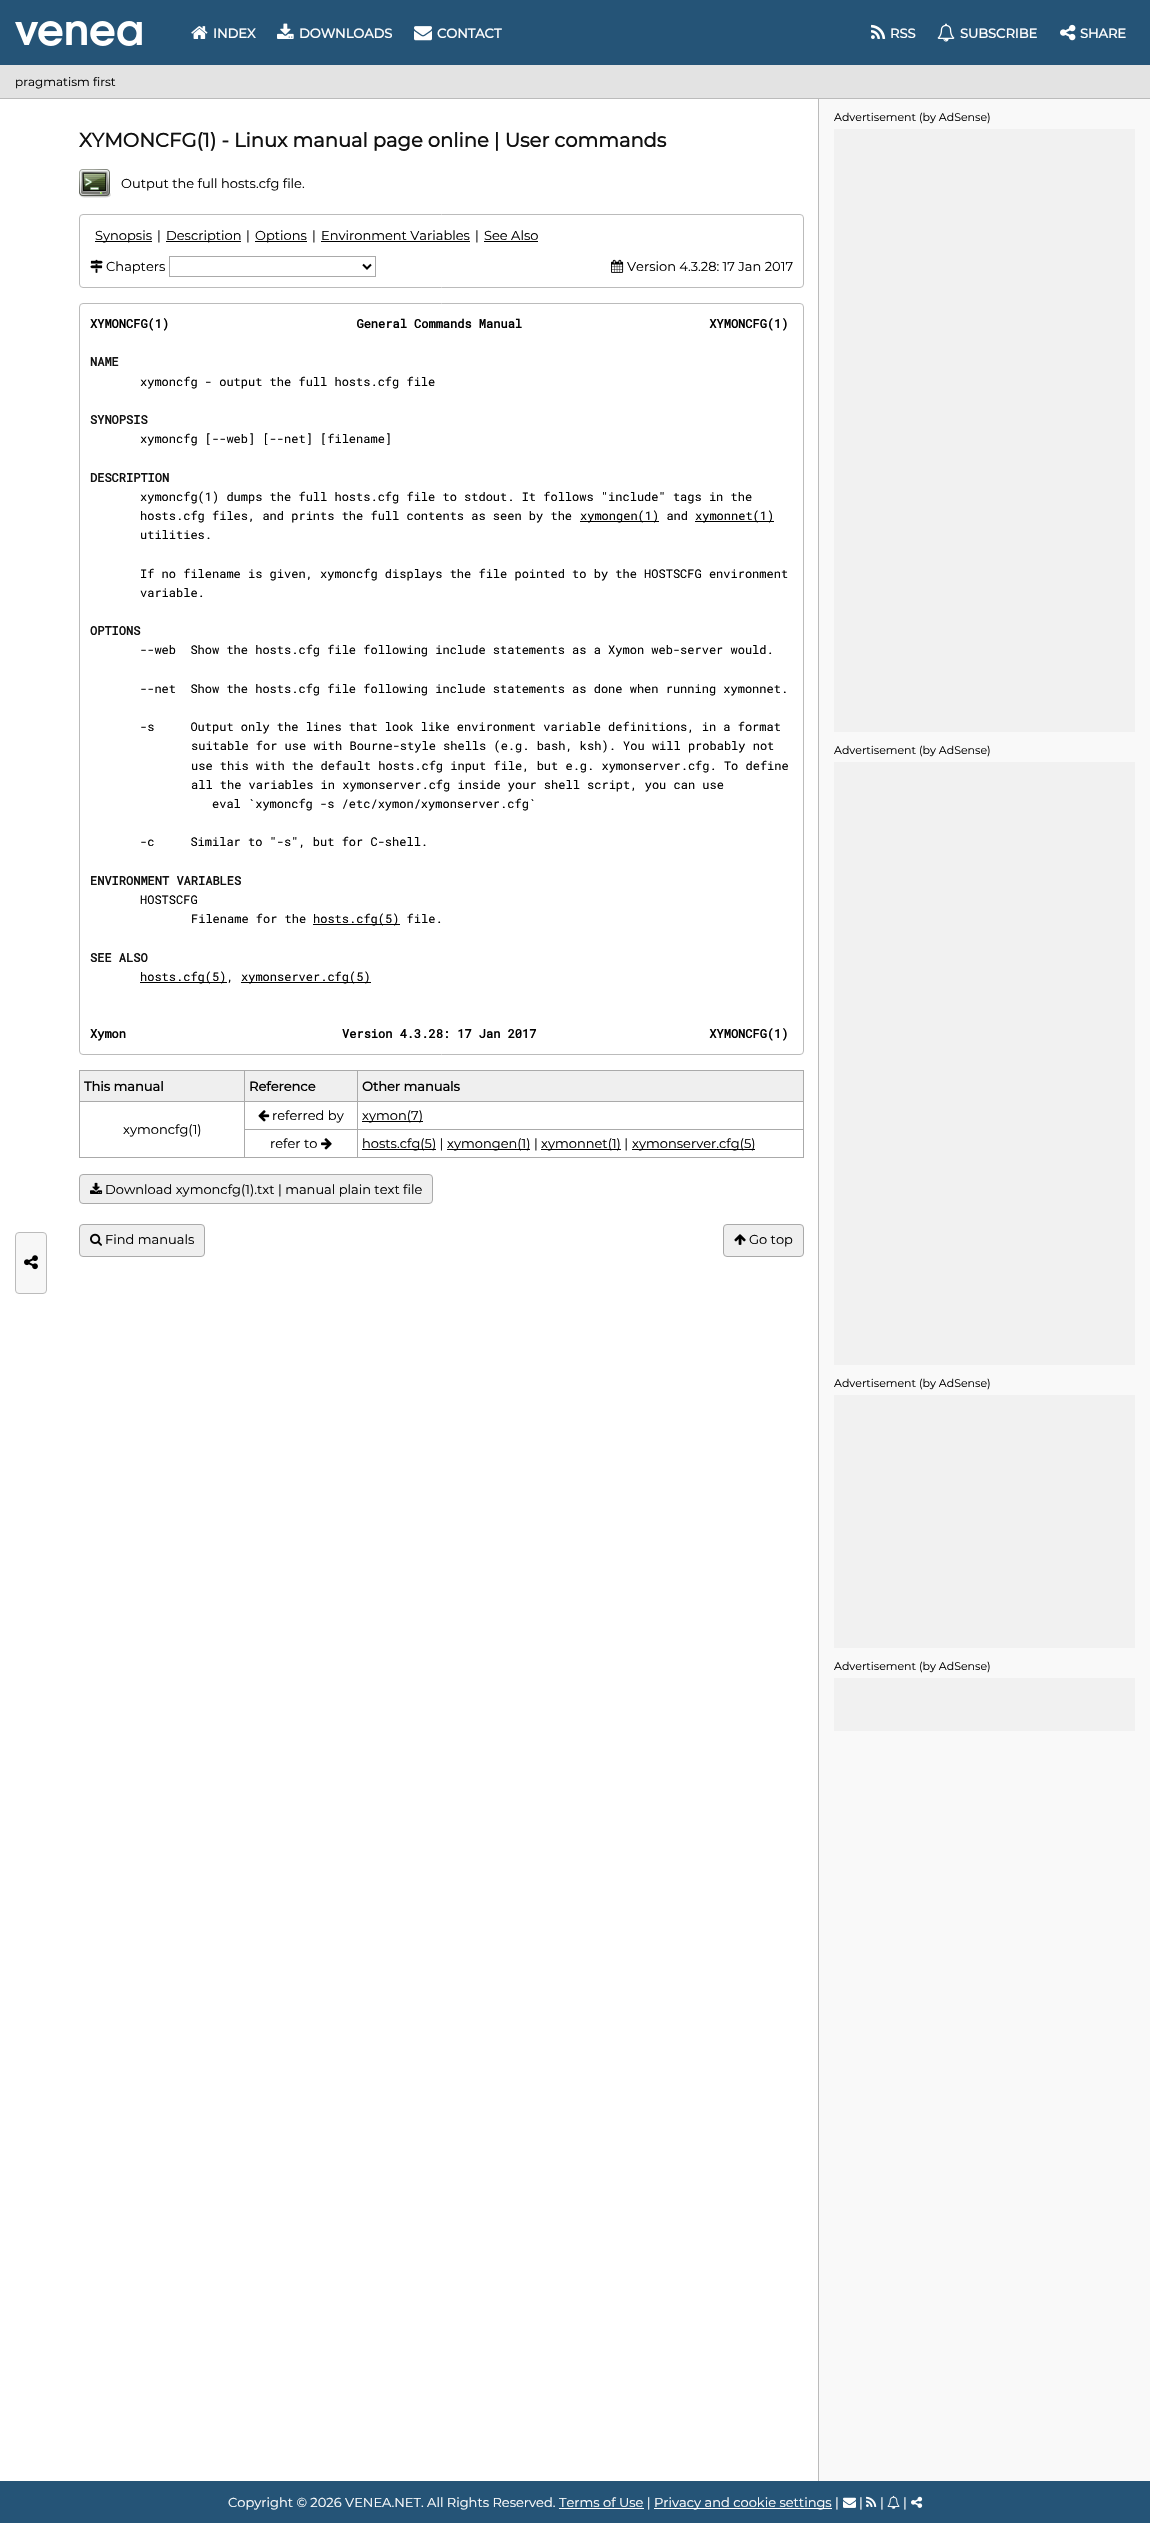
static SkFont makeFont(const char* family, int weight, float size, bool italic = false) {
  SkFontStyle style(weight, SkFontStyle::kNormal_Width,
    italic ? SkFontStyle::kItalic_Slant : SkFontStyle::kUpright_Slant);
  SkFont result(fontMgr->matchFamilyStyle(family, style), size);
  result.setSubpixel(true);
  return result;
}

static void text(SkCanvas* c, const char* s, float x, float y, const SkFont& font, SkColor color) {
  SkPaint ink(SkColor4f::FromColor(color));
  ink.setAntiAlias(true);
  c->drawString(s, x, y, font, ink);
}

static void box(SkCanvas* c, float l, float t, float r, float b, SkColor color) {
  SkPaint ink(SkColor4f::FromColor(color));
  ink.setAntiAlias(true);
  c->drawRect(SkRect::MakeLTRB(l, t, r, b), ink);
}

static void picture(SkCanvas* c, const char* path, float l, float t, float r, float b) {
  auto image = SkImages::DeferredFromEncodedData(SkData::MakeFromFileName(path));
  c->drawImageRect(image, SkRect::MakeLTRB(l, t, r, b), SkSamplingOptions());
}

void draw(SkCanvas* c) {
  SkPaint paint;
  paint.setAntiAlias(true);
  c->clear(0xfff9f9f9);
  box(c, 0, 0, 1150, 65, 0xff255477);
  picture(c, "img_01.png", 15, 21, 142, 46);
  picture(c, "img_02.png", 191, 26, 208, 39);
  SkFont face1 = makeFont("Montserrat", 700, 13);
  text(c, "INDEX", 213, 38, face1, 0xffffffff);
  picture(c, "img_03.png", 277, 23, 294, 39);
  text(c, "DOWNLOADS", 299, 38, face1, 0xffffffff);
  picture(c, "img_04.png", 414, 26, 432, 41);
  text(c, "CONTACT", 437, 38, face1, 0xffffffff);
  picture(c, "img_05.png", 871, 24, 886, 39);
  text(c, "RSS", 890, 38, face1, 0xffffffff);
  picture(c, "img_06.png", 937, 23, 955, 42);
  text(c, "SUBSCRIBE", 960, 38, face1, 0xffffffff);
  picture(c, "img_07.png", 1060, 24, 1076, 41);
  text(c, "SHARE", 1080, 38, face1, 0xffffffff);
  box(c, 0, 65, 1150, 98, 0xffe3e3e3);
  box(c, 0, 98, 1150, 99, 0xffbbbbbb);
  SkFont face2 = makeFont("Montserrat", 100, 12);
  text(c, "pragmatism first", 15, 86, face2, 0xff000000);
  box(c, 0, 99, 818, 2481, 0xffffffff);
  box(c, 818, 99, 819, 2481, 0xffbbbbbb);
  SkFont face3 = makeFont("Montserrat", 100, 11);
  text(c, "Advertisement (by AdSense)", 834, 121, face3, 0xff000000);
  box(c, 834, 129, 1135, 732, 0xfff1f1f1);
  text(c, "Advertisement (by AdSense)", 834, 754, face3, 0xff000000);
  box(c, 834, 762, 1135, 1365, 0xfff1f1f1);
  text(c, "Advertisement (by AdSense)", 834, 1387, face3, 0xff000000);
  box(c, 834, 1395, 1135, 1648, 0xfff1f1f1);
  text(c, "Advertisement (by AdSense)", 834, 1670, face3, 0xff000000);
  box(c, 834, 1678, 1135, 1731, 0xfff1f1f1);
  SkFont face4 = makeFont("Montserrat", 700, 19.5f);
  text(c, "XYMONCFG(1) - Linux manual page online | User commands", 79, 147, face4, 0xff111111);
  picture(c, "img_08.png", 79, 169, 111, 198);
  SkFont face5 = makeFont("Montserrat", 100, 13);
  text(c, "Output the full hosts.cfg file.", 121, 188, face5, 0xff000000);
  paint.setStyle(SkPaint::kStroke_Style);
  paint.setStrokeWidth(1);
  paint.setColor(0xffbbbbbb);
  c->drawRoundRect(SkRect::MakeLTRB(79.5f, 214.5f, 803.5f, 287.5f), 3.5f, 3.5f, paint);
  box(c, 95, 241, 152, 242, 0xff000000);
  text(c, "Synopsis", 95, 240, face5, 0xff000000);
  text(c, "|", 157, 240, face5, 0xff000000);
  box(c, 166, 241, 241, 242, 0xff000000);
  text(c, "Description", 166, 240, face5, 0xff000000);
  text(c, "|", 246, 240, face5, 0xff000000);
  box(c, 255, 241, 307, 242, 0xff000000);
  text(c, "Options", 255, 240, face5, 0xff000000);
  text(c, "|", 312, 240, face5, 0xff000000);
  text(c, "Environment Variables", 321, 240, face5, 0xff000000);
  box(c, 321, 241, 470, 242, 0xff000000);
  text(c, "|", 475, 240, face5, 0xff000000);
  text(c, "See Also", 484, 240, face5, 0xff000000);
  box(c, 484, 241, 538, 242, 0xff000000);
  picture(c, "img_09.png", 90, 259, 103, 273);
  text(c, "Chapters", 106, 271, face5, 0xff000000);
  paint.setColor(0xffaaaaaa);
  c->drawRect(SkRect::MakeLTRB(169.5f, 256.5f, 375.5f, 276.5f), paint);
  paint.setStrokeWidth(2);
  paint.setColor(0xff000000);
  c->drawPath(SkPathBuilder().moveTo(363, 264.5f).lineTo(367, 268.5f).lineTo(371, 264.5f).detach(), paint);
  picture(c, "img_10.png", 611, 259, 624, 273);
  text(c, "Version 4.3.28: 17 Jan 2017", 627, 271, face5, 0xff000000);
  paint.setStrokeWidth(1);
  paint.setColor(0xffbbbbbb);
  c->drawRoundRect(SkRect::MakeLTRB(79.5f, 303.5f, 803.5f, 1054.5f), 3.5f, 3.5f, paint);
  SkFont face6 = makeFont("Roboto Mono", 700, 12);
  text(c, "XYMONCFG(1)                          General Commands Manual                          XYMONCFG(1)", 90, 328, face6, 0xff000000);
  text(c, "NAME", 90, 366, face6, 0xff111111);
  SkFont face7 = makeFont("Roboto Mono", 400, 12);
  text(c, "xymoncfg - output the full hosts.cfg file", 140, 386, face7, 0xff000000);
  text(c, "SYNOPSIS", 90, 424, face6, 0xff111111);
  text(c, "xymoncfg [--web] [--net] [filename]", 140, 443, face7, 0xff000000);
  text(c, "DESCRIPTION", 90, 482, face6, 0xff111111);
  text(c, "xymoncfg(1) dumps the full hosts.cfg file to stdout. It follows \"include\" tags in the", 140, 501, face7, 0xff000000);
  text(c, "hosts.cfg files, and prints the full contents as seen by the", 140, 520, face7, 0xff000000);
  box(c, 580, 521, 659, 522, 0xff000000);
  text(c, "xymongen(1) and", 580, 520, face7, 0xff000000);
  box(c, 695, 521, 774, 522, 0xff000000);
  text(c, "xymonnet(1)", 695, 520, face7, 0xff000000);
  text(c, "utilities.", 140, 539, face7, 0xff000000);
  text(c, "If no filename is given, xymoncfg displays the file pointed to by the HOSTSCFG environment", 140, 578, face7, 0xff000000);
  text(c, "variable.", 140, 597, face7, 0xff000000);
  text(c, "OPTIONS", 90, 635, face6, 0xff111111);
  text(c, "--web  Show the hosts.cfg file following include statements as a Xymon web-server would.", 140, 654, face7, 0xff000000);
  text(c, "--net  Show the hosts.cfg file following include statements as done when running xymonnet.", 140, 693, face7, 0xff000000);
  text(c, "-s     Output only the lines that look like environment variable definitions, in a format", 140, 731, face7, 0xff000000);
  text(c, "suitable for use with Bourne-style shells (e.g. bash, ksh). You will probably not", 191, 750, face7, 0xff000000);
  text(c, "use this with the default hosts.cfg input file, but e.g. xymonserver.cfg. To define", 191, 770, face7, 0xff000000);
  text(c, "all the variables in xymonserver.cfg inside your shell script, you can use", 191, 789, face7, 0xff000000);
  text(c, "eval `xymoncfg -s /etc/xymon/xymonserver.cfg`", 212, 808, face7, 0xff000000);
  text(c, "-c     Similar to \"-s\", but for C-shell.", 140, 846, face7, 0xff000000);
  text(c, "ENVIRONMENT VARIABLES", 90, 885, face6, 0xff111111);
  text(c, "HOSTSCFG", 140, 904, face7, 0xff000000);
  text(c, "Filename for the", 191, 923, face7, 0xff000000);
  box(c, 313, 924, 400, 925, 0xff000000);
  text(c, "hosts.cfg(5) file.", 313, 923, face7, 0xff000000);
  text(c, "SEE ALSO", 90, 962, face6, 0xff111111);
  box(c, 140, 982, 227, 983, 0xff000000);
  text(c, "hosts.cfg(5),", 140, 981, face7, 0xff000000);
  box(c, 241, 982, 371, 983, 0xff000000);
  text(c, "xymonserver.cfg(5)", 241, 981, face7, 0xff000000);
  text(c, "Xymon                              Version 4.3.28: 17 Jan 2017                        XYMONCFG(1)", 90, 1038, face6, 0xff000000);
  box(c, 80, 1071, 803, 1101, 0xffefefef);
  box(c, 357, 1070, 804, 1071, 0xffaaaaaa);
  box(c, 357, 1101, 804, 1102, 0xffaaaaaa);
  box(c, 357, 1129, 804, 1130, 0xffaaaaaa);
  box(c, 803, 1129, 804, 1158, 0xffaaaaaa);
  box(c, 357, 1157, 804, 1158, 0xffaaaaaa);
  box(c, 357, 1129, 358, 1158, 0xffaaaaaa);
  box(c, 244, 1129, 358, 1130, 0xffaaaaaa);
  box(c, 357, 1101, 358, 1130, 0xffaaaaaa);
  box(c, 244, 1101, 358, 1102, 0xffaaaaaa);
  box(c, 357, 1070, 358, 1102, 0xffaaaaaa);
  box(c, 244, 1070, 358, 1071, 0xffaaaaaa);
  box(c, 244, 1157, 358, 1158, 0xffaaaaaa);
  box(c, 244, 1129, 245, 1158, 0xffaaaaaa);
  box(c, 244, 1101, 245, 1130, 0xffaaaaaa);
  box(c, 79, 1101, 245, 1102, 0xffaaaaaa);
  box(c, 244, 1070, 245, 1102, 0xffaaaaaa);
  box(c, 79, 1070, 245, 1071, 0xffaaaaaa);
  box(c, 79, 1157, 245, 1158, 0xffaaaaaa);
  box(c, 79, 1101, 80, 1158, 0xffaaaaaa);
  box(c, 79, 1070, 80, 1102, 0xffaaaaaa);
  text(c, "This manual", 84, 1091, face1, 0xff000000);
  text(c, "Reference", 249, 1091, face1, 0xff000000);
  box(c, 803, 1101, 804, 1130, 0xffaaaaaa);
  box(c, 803, 1070, 804, 1102, 0xffaaaaaa);
  text(c, "Other manuals", 362, 1091, face1, 0xff000000);
  picture(c, "img_11.png", 258, 1110, 270, 1122);
  text(c, "referred by", 272, 1120, face5, 0xff000000);
  box(c, 362, 1121, 423, 1122, 0xff000000);
  text(c, "xymon(7)", 362, 1120, face5, 0xff000000);
  text(c, "xymoncfg(1)", 123, 1134, face5, 0xff000000);
  text(c, "refer to", 270, 1148, face5, 0xff000000);
  picture(c, "img_12.png", 321, 1138, 332, 1150);
  box(c, 362, 1149, 436, 1150, 0xff000000);
  text(c, "hosts.cfg(5) |", 362, 1148, face5, 0xff000000);
  box(c, 447, 1149, 530, 1150, 0xff000000);
  text(c, "xymongen(1) |", 447, 1148, face5, 0xff000000);
  box(c, 541, 1149, 621, 1150, 0xff000000);
  text(c, "xymonnet(1) |", 541, 1148, face5, 0xff000000);
  box(c, 632, 1149, 755, 1150, 0xff000000);
  text(c, "xymonserver.cfg(5)", 632, 1148, face5, 0xff000000);
  paint.setStyle(SkPaint::kFill_Style);
  paint.setColor(0xffefefef);
  c->drawRoundRect(SkRect::MakeLTRB(79.5f, 1174.5f, 432.5f, 1203.5f), 3.5f, 3.5f, paint);
  paint.setStyle(SkPaint::kStroke_Style);
  paint.setColor(0xffaaaaaa);
  c->drawRoundRect(SkRect::MakeLTRB(79.5f, 1174.5f, 432.5f, 1203.5f), 3.5f, 3.5f, paint);
  picture(c, "img_13.png", 90, 1182, 103, 1194);
  text(c, "Download xymoncfg(1).txt | manual plain text file", 105, 1194, face5, 0xff000000);
  paint.setStyle(SkPaint::kFill_Style);
  paint.setColor(0xffefefef);
  c->drawRoundRect(SkRect::MakeLTRB(79.5f, 1224.5f, 204.5f, 1256.5f), 3.5f, 3.5f, paint);
  paint.setStyle(SkPaint::kStroke_Style);
  paint.setColor(0xffaaaaaa);
  c->drawRoundRect(SkRect::MakeLTRB(79.5f, 1224.5f, 204.5f, 1256.5f), 3.5f, 3.5f, paint);
  picture(c, "img_14.png", 90, 1233, 102, 1246);
  text(c, "Find manuals", 105, 1244, face5, 0xff000000);
  paint.setStyle(SkPaint::kFill_Style);
  paint.setColor(0xffefefef);
  c->drawRoundRect(SkRect::MakeLTRB(723.5f, 1224.5f, 803.5f, 1256.5f), 3.5f, 3.5f, paint);
  paint.setStyle(SkPaint::kStroke_Style);
  paint.setColor(0xffaaaaaa);
  c->drawRoundRect(SkRect::MakeLTRB(723.5f, 1224.5f, 803.5f, 1256.5f), 3.5f, 3.5f, paint);
  picture(c, "img_15.png", 734, 1234, 746, 1245);
  text(c, "Go top", 749, 1244, face5, 0xff000000);
  paint.setStyle(SkPaint::kFill_Style);
  paint.setColor(0xfff7f7f7);
  c->drawRoundRect(SkRect::MakeLTRB(15.5f, 1232.5f, 46.5f, 1293.5f), 3.5f, 3.5f, paint);
  paint.setStyle(SkPaint::kStroke_Style);
  paint.setColor(0xffbbbbbb);
  c->drawRoundRect(SkRect::MakeLTRB(15.5f, 1232.5f, 46.5f, 1293.5f), 3.5f, 3.5f, paint);
  picture(c, "img_16.png", 24, 1255, 38, 1270);
  box(c, 0, 2481, 1150, 2523, 0xff255477);
  text(c, "Copyright © 2026 VENEA.NET. All Rights Reserved. Terms of Use |", 228, 2507, face5, 0xffffffff);
  box(c, 654, 2508, 832, 2509, 0xffffffff);
  text(c, "Privacy and cookie settings |", 654, 2507, face5, 0xffffffff);
  picture(c, "img_17.png", 843, 2497, 856, 2508);
  text(c, "|", 859, 2507, face5, 0xffffffff);
  picture(c, "img_18.png", 866, 2496, 877, 2507);
  text(c, "|", 880, 2507, face5, 0xffffffff);
  picture(c, "img_19.png", 887, 2495, 900, 2509);
  text(c, "|", 903, 2507, face5, 0xffffffff);
  picture(c, "img_20.png", 911, 2496, 923, 2508);
  box(c, 559, 2508, 644, 2509, 0xffffffff);
}
